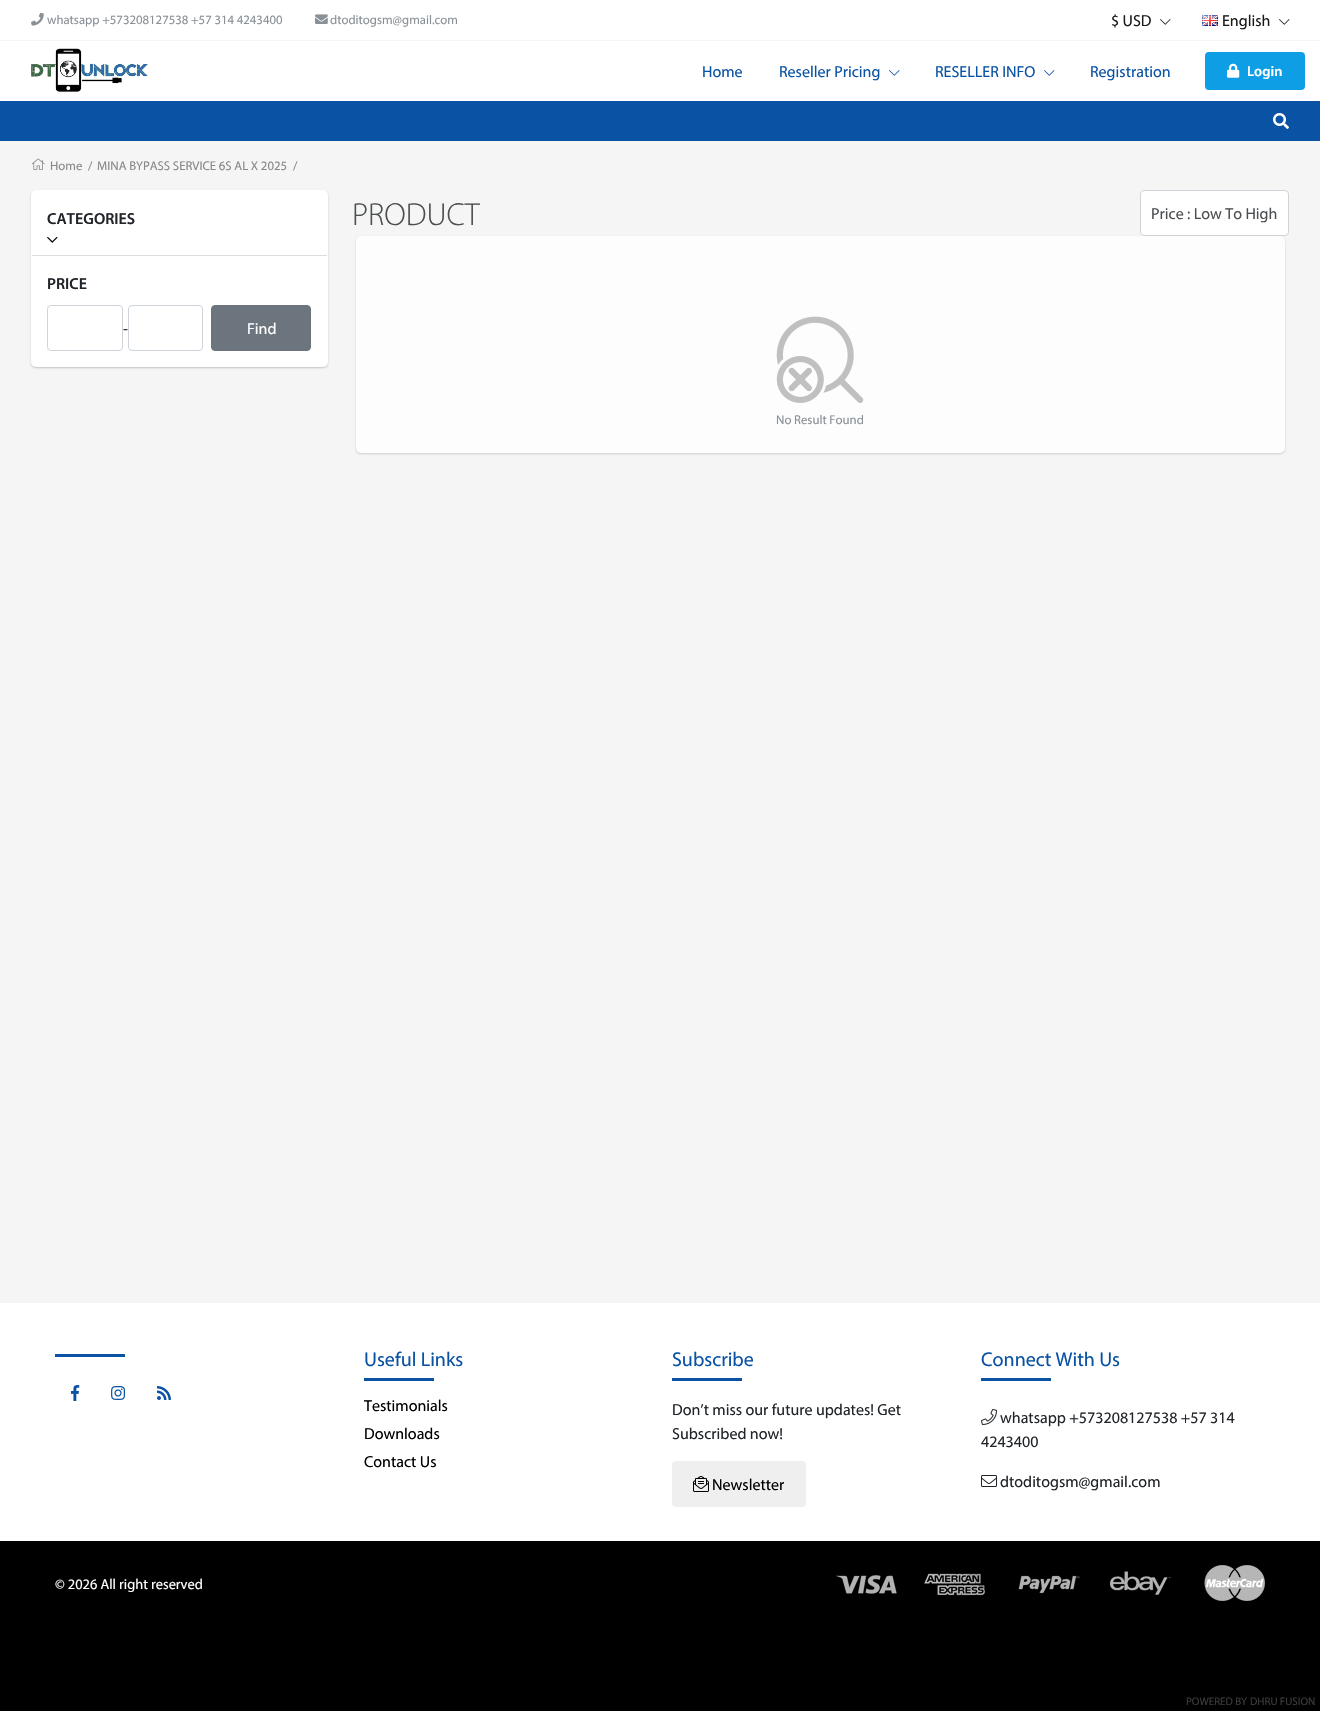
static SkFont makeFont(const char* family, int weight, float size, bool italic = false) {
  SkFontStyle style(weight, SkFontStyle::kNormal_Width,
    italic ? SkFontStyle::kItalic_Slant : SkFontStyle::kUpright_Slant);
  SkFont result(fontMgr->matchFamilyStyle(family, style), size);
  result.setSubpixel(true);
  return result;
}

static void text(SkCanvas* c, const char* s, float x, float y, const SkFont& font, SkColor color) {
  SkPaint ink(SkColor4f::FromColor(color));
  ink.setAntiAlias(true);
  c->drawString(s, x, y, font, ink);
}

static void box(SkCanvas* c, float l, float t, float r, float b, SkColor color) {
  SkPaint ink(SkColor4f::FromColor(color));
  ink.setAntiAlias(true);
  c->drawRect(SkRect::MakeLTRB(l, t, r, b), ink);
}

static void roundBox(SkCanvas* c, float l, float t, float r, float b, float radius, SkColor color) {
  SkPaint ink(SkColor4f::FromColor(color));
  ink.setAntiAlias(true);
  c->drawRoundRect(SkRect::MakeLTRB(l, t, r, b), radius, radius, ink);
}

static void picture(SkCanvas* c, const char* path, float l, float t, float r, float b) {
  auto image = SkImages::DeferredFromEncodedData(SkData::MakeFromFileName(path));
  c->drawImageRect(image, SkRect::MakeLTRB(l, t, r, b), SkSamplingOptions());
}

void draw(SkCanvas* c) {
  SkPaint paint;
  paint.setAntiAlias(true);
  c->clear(0xff000000);
  box(c, 0, 0, 1320, 101, 0xffffffff);
  box(c, 0, 40, 1320, 41, 0xfff6f6f6);
  picture(c, "img_01.png", 31, 12, 44, 26);
  SkFont face1 = makeFont("Myriad", 400, 12.75f);
  text(c, "whatsapp +573208127538 +57 314 4243400", 47, 24, face1, 0xff899197);
  picture(c, "img_02.png", 315, 14, 328, 24);
  text(c, "dtoditogsm@gmail.com", 330, 24, face1, 0xff899197);
  SkFont face2 = makeFont("Myriad", 400, 16);
  text(c, "$ USD", 1111, 26, face2, 0xff1a1a1a);
  picture(c, "img_03.png", 1160, 19, 1171, 25);
  picture(c, "img_04.png", 1202, 15, 1218, 26);
  text(c, "English", 1222, 26, face2, 0xff1a1a1a);
  picture(c, "img_03.png", 1279, 19, 1290, 25);
  picture(c, "img_05.png", 31, 48, 148, 92);
  text(c, "Home", 702, 77, face2, 0xff0a52a4);
  text(c, "Reseller Pricing", 779, 77, face2, 0xff0a52a4);
  picture(c, "img_06.png", 889, 70, 900, 76);
  text(c, "RESELLER INFO", 935, 77, face2, 0xff0a52a4);
  picture(c, "img_06.png", 1044, 70, 1055, 76);
  text(c, "Registration", 1090, 77, face2, 0xff0a52a4);
  roundBox(c, 1205, 52, 1305, 90, 4, 0xff0e9ee5);
  picture(c, "img_07.png", 1227, 63, 1240, 78);
  SkFont face3 = makeFont("Myriad", 600, 14.4f);
  text(c, "Login", 1247, 76, face3, 0xffffffff);
  box(c, 0, 101, 1320, 141, 0xff0a52a4);
  picture(c, "img_08.png", 1273, 113, 1289, 129);
  box(c, 0, 141, 1320, 1303, 0xfff5f5f5);
  picture(c, "img_09.png", 31, 158, 45, 170);
  text(c, "Home", 50, 170, face1, 0xff888888);
  text(c, "/", 88, 170, face1, 0xff888888);
  text(c, "MINA BYPASS SERVICE 6S AL X 2025", 97, 170, face1, 0xff888888);
  text(c, "/", 293, 170, face1, 0xff888888);
  paint.setColor(0x33000000);
  paint.setMaskFilter(SkMaskFilter::MakeBlur(kNormal_SkBlurStyle, 1));
  c->drawRoundRect(SkRect::MakeLTRB(31, 191, 328, 368), 5, 5, paint);
  paint.setMaskFilter(nullptr);
  roundBox(c, 31, 190, 328, 367, 5, 0xffffffff);
  SkFont face4 = makeFont("Myriad", 600, 16);
  text(c, "CATEGORIES", 47, 224, face4, 0xff212529);
  picture(c, "img_10.png", 47, 236, 58, 243);
  box(c, 32, 255, 327, 256, 0xffdddddd);
  text(c, "PRICE", 47, 289, face4, 0xff212529);
  paint.setStyle(SkPaint::kStroke_Style);
  paint.setStrokeWidth(1);
  paint.setColor(0xffced4da);
  c->drawRoundRect(SkRect::MakeLTRB(47.5f, 305.5f, 122.5f, 350.5f), 3.5f, 3.5f, paint);
  text(c, "-", 123, 334, face2, 0xff212529);
  c->drawRoundRect(SkRect::MakeLTRB(128.5f, 305.5f, 202.5f, 350.5f), 3.5f, 3.5f, paint);
  paint.setStyle(SkPaint::kFill_Style);
  paint.setColor(0xff6c757d);
  c->drawRoundRect(SkRect::MakeLTRB(211.5f, 305.5f, 310.5f, 350.5f), 3.5f, 3.5f, paint);
  paint.setStyle(SkPaint::kStroke_Style);
  c->drawRoundRect(SkRect::MakeLTRB(211.5f, 305.5f, 310.5f, 350.5f), 3.5f, 3.5f, paint);
  text(c, "Find", 247, 334, face2, 0xffffffff);
  SkFont face5 = makeFont("Myriad", 300, 32);
  text(c, "PRODUCT", 352, 225, face5, 0xff4b4f52);
  paint.setStyle(SkPaint::kFill_Style);
  paint.setColor(0xffffffff);
  c->drawRoundRect(SkRect::MakeLTRB(1140.5f, 190.5f, 1288.5f, 235.5f), 3.5f, 3.5f, paint);
  paint.setStyle(SkPaint::kStroke_Style);
  paint.setColor(0xffced4da);
  c->drawRoundRect(SkRect::MakeLTRB(1140.5f, 190.5f, 1288.5f, 235.5f), 3.5f, 3.5f, paint);
  text(c, "Price : Low To High", 1151, 219, face2, 0xff4b4f52);
  paint.setStyle(SkPaint::kFill_Style);
  paint.setColor(0x29000000);
  paint.setMaskFilter(SkMaskFilter::MakeBlur(kNormal_SkBlurStyle, 1));
  c->drawRoundRect(SkRect::MakeLTRB(356, 237, 1285, 454), 5, 5, paint);
  paint.setMaskFilter(nullptr);
  roundBox(c, 356, 236, 1285, 453, 5, 0xfffdfdfd);
  picture(c, "img_11.png", 776, 316, 864, 403);
  text(c, "No Result Found", 776, 424, face1, 0xff899197);
  box(c, 0, 1303, 1320, 1541, 0xffffffff);
  box(c, 55, 1354, 125, 1357, 0xff0a52a4);
  picture(c, "img_12.png", 71, 1385, 80, 1401);
  picture(c, "img_13.png", 111, 1386, 126, 1400);
  picture(c, "img_14.png", 157, 1386, 171, 1400);
  SkFont face6 = makeFont("Myriad", 400, 20);
  text(c, "Useful Links", 364, 1366, face6, 0xff0a52a4);
  box(c, 364, 1378, 434, 1381, 0xff0a52a4);
  text(c, "Testimonials", 364, 1411, face2, 0xff000000);
  text(c, "Downloads", 364, 1439, face2, 0xff000000);
  text(c, "Contact Us", 364, 1467, face2, 0xff000000);
  text(c, "Subscribe", 672, 1366, face6, 0xff0a52a4);
  box(c, 672, 1378, 742, 1381, 0xff0a52a4);
  text(c, "Don’t miss our future updates! Get", 672, 1415, face2, 0xff212529);
  text(c, "Subscribed now!", 672, 1439, face2, 0xff212529);
  roundBox(c, 672, 1461, 806, 1507, 4, 0xffefefef);
  picture(c, "img_15.png", 693, 1476, 709, 1492);
  text(c, "Newsletter", 712, 1490, face2, 0xff000000);
  text(c, "Connect With Us", 981, 1366, face6, 0xff0a52a4);
  box(c, 981, 1378, 1051, 1381, 0xff0a52a4);
  picture(c, "img_16.png", 981, 1409, 997, 1425);
  text(c, "whatsapp +573208127538 +57 314", 1000, 1423, face2, 0xff212529);
  text(c, "4243400", 981, 1447, face2, 0xff212529);
  picture(c, "img_17.png", 981, 1475, 997, 1487);
  text(c, "dtoditogsm@gmail.com", 1000, 1487, face2, 0xff212529);
  SkFont face7 = makeFont("Myriad", 400, 14.4f);
  text(c, "© 2026 All right reserved", 55, 1589, face7, 0xffffffff);
  picture(c, "img_18.png", 836, 1565, 1265, 1601);
  SkFont face8 = makeFont("Myriad", 400, 11);
  text(c, "POWERED BY", 1186, 1705, face8, 0xff3b3b3b);
  text(c, "DHRU FUSION", 1250, 1705, face8, 0xff3b3b3b);
}
